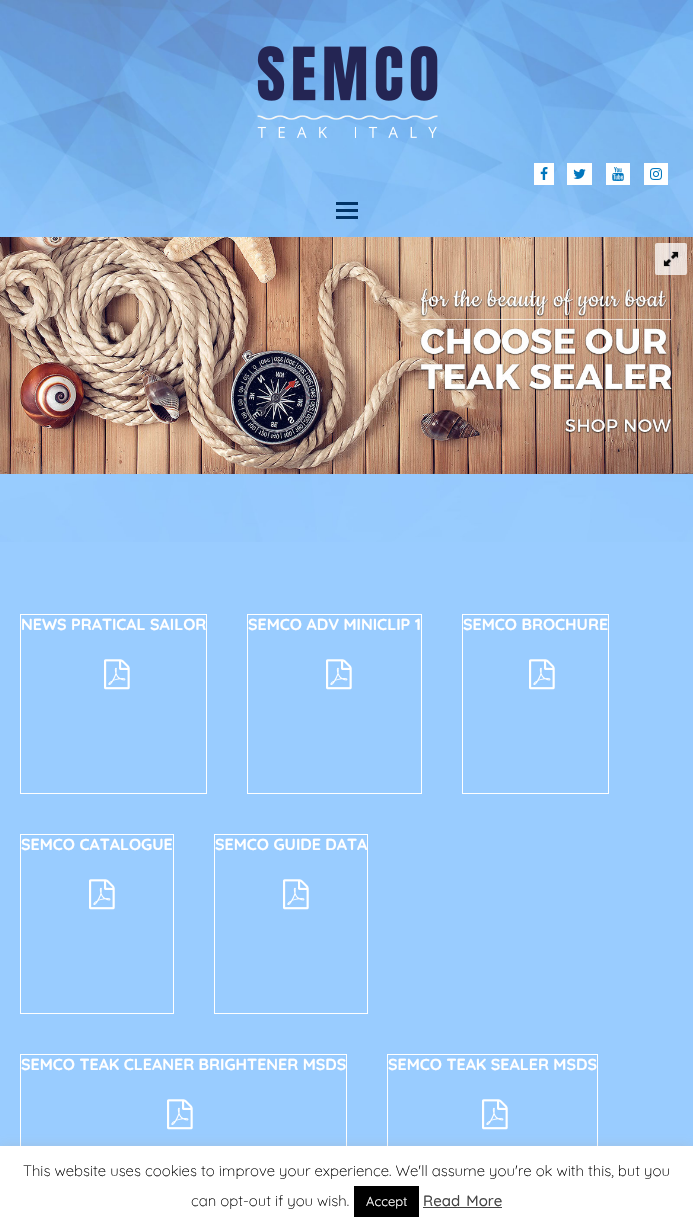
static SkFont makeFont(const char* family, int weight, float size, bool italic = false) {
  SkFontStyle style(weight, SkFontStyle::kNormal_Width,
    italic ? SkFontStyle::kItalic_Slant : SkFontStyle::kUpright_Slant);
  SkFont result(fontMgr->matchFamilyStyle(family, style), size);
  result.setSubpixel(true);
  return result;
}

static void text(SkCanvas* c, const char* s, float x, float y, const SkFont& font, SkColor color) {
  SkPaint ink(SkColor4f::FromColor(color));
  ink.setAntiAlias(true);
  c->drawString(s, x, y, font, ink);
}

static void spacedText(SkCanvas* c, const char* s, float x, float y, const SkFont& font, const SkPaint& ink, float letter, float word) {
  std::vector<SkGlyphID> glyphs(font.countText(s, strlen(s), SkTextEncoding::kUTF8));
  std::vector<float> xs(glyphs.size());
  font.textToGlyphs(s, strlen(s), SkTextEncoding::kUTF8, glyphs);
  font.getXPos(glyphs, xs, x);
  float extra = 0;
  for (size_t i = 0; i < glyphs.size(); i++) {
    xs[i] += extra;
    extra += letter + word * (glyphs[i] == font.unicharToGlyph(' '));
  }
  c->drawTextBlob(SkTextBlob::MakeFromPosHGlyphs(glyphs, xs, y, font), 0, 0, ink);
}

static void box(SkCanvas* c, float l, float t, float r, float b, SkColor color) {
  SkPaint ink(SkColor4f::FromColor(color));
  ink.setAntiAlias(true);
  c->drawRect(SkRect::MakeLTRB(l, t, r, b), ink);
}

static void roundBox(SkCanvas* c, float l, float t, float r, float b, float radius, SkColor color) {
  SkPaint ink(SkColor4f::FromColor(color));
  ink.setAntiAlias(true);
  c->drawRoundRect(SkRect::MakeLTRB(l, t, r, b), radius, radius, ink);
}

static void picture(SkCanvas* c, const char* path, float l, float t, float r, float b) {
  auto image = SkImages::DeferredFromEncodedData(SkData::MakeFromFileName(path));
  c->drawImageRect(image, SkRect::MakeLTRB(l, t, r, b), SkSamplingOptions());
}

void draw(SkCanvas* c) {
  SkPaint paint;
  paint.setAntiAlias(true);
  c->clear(0xff99ccff);
  picture(c, "img_01.png", 0, 0, 693, 542);
  picture(c, "img_02.png", 257, 46, 438, 138);
  box(c, 534, 163, 554, 185, 0xffffffff);
  picture(c, "img_03.png", 540, 167, 548, 180);
  box(c, 567, 163, 592, 185, 0xffffffff);
  picture(c, "img_04.png", 573, 169, 586, 179);
  box(c, 606, 163, 630, 185, 0xffffffff);
  picture(c, "img_05.png", 612, 167, 624, 181);
  box(c, 644, 163, 668, 185, 0xffffffff);
  picture(c, "img_06.png", 650, 168, 662, 180);
  box(c, 336, 202, 358, 205, 0xff003366);
  box(c, 336, 209, 358, 212, 0xff003366);
  box(c, 336, 216, 358, 219, 0xff003366);
  picture(c, "img_07.png", 0, 237, 693, 474);
  roundBox(c, 655, 243, 687, 275, 2, 0xbfffffff);
  picture(c, "img_08.png", 663, 251, 679, 267);
  paint.setStyle(SkPaint::kStroke_Style);
  paint.setStrokeWidth(1);
  paint.setColor(0xffffffff);
  c->drawRect(SkRect::MakeLTRB(20.5f, 614.5f, 206.5f, 793.5f), paint);
  SkFont face1 = makeFont("Quicksand", 700, 16);
  text(c, "NEWS PRATICAL SAILOR", 21, 630, face1, 0xffffffff);
  picture(c, "img_09.png", 104, 659, 130, 690);
  c->drawRect(SkRect::MakeLTRB(247.5f, 614.5f, 421.5f, 793.5f), paint);
  text(c, "SEMCO ADV MINICLIP 1", 248, 630, face1, 0xffffffff);
  picture(c, "img_09.png", 326, 659, 352, 690);
  c->drawRect(SkRect::MakeLTRB(462.5f, 614.5f, 608.5f, 793.5f), paint);
  text(c, "SEMCO BROCHURE", 463, 630, face1, 0xffffffff);
  picture(c, "img_09.png", 529, 659, 555, 690);
  c->drawRect(SkRect::MakeLTRB(20.5f, 834.5f, 173.5f, 1013.5f), paint);
  text(c, "SEMCO CATALOGUE", 21, 850, face1, 0xffffffff);
  picture(c, "img_09.png", 89, 879, 115, 910);
  c->drawRect(SkRect::MakeLTRB(214.5f, 834.5f, 367.5f, 1013.5f), paint);
  text(c, "SEMCO GUIDE DATA", 215, 850, face1, 0xffffffff);
  picture(c, "img_09.png", 283, 879, 309, 910);
  c->drawRect(SkRect::MakeLTRB(20.5f, 1054.5f, 346.5f, 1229.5f), paint);
  text(c, "SEMCO TEAK CLEANER BRIGHTENER MSDS", 21, 1070, face1, 0xffffffff);
  picture(c, "img_09.png", 167, 1099, 193, 1130);
  c->drawRect(SkRect::MakeLTRB(387.5f, 1054.5f, 597.5f, 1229.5f), paint);
  text(c, "SEMCO TEAK SEALER MSDS", 388, 1070, face1, 0xffffffff);
  picture(c, "img_09.png", 482, 1099, 508, 1130);
  paint.setStyle(SkPaint::kFill_Style);
  paint.setColor(0x4dacabab);
  paint.setMaskFilter(SkMaskFilter::MakeBlur(kNormal_SkBlurStyle, 5));
  c->drawRect(SkRect::MakeLTRB(0, 1145, 693, 1228), paint);
  paint.setMaskFilter(nullptr);
  box(c, 0, 1146, 693, 1229, 0xffffffff);
  SkFont face2 = makeFont("Quicksand", 300, 15);
  text(c, "This website uses cookies to improve your experience. We'll assume you're ok with this, but you", 23, 1176, face2, 0xff000000);
  text(c, "can opt-out if you wish.", 191, 1206, face2, 0xff000000);
  box(c, 354, 1186, 419, 1217, 0xff000000);
  SkFont face3 = makeFont("Quicksand", 400, 13);
  text(c, "Accept", 366, 1206, face3, 0xffffffff);
  SkFont face4 = makeFont("Quicksand", 500, 15);
  paint.setColor(0xff444444);
  spacedText(c, "Read More", 423, 1206, face4, paint, 0, 2);
  box(c, 423, 1207, 502, 1208, 0xff444444);
}
